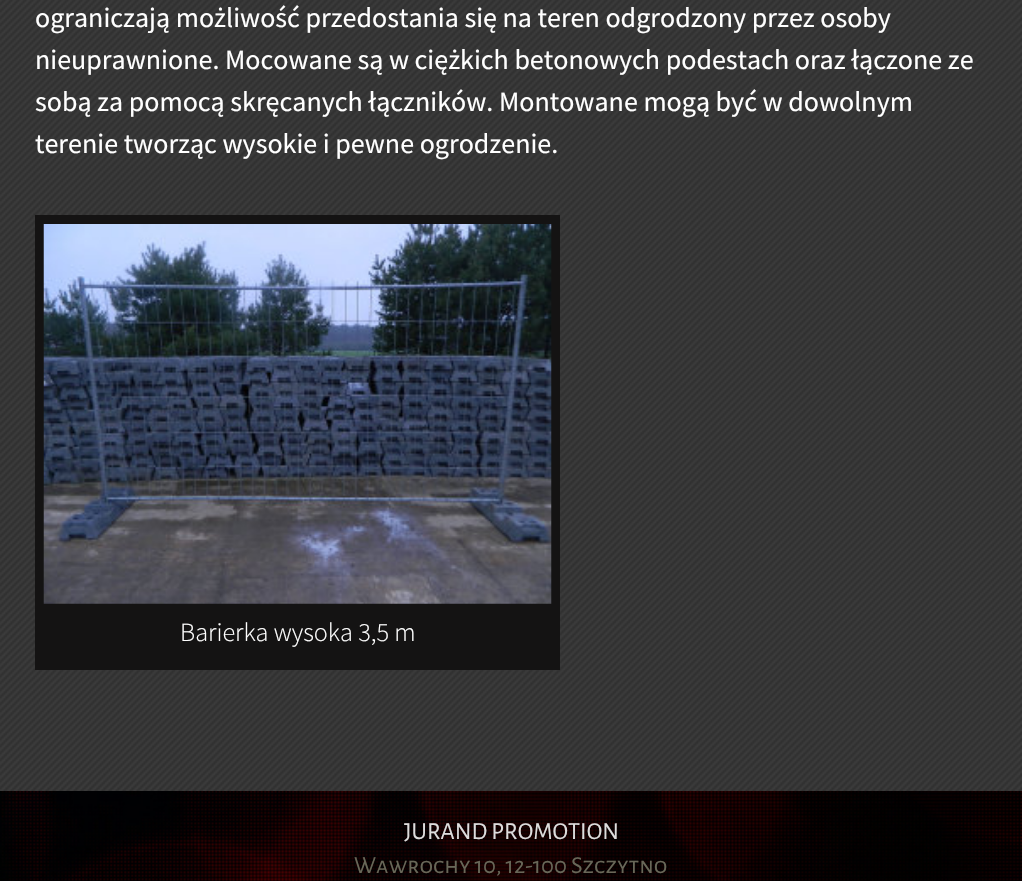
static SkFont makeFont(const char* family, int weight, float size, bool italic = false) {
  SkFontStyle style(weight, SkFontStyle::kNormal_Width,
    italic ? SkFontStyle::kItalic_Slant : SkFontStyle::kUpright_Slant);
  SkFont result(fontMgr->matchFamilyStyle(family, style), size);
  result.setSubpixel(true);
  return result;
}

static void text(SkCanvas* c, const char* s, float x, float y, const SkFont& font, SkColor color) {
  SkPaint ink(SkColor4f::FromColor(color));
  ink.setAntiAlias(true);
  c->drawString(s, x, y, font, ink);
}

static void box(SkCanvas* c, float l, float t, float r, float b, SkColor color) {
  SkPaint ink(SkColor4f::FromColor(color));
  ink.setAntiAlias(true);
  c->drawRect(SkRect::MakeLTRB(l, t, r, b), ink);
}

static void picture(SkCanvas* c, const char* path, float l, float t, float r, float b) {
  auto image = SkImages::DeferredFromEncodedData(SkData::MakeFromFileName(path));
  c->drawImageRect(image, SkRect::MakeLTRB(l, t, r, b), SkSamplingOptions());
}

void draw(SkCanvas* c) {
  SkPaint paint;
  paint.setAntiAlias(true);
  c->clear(0xffffffff);
  picture(c, "img_01.png", 0, 0, 1022, 791);
  SkFont face1 = makeFont("Source Sans Pro", 400, 28);
  text(c, "ograniczają możliwość przedostania się na teren odgrodzony przez osoby", 35, 27, face1, 0xffffffff);
  text(c, "nieuprawnione. Mocowane są w ciężkich betonowych podestach oraz łączone ze", 35, 69, face1, 0xffffffff);
  text(c, "sobą za pomocą skręcanych łączników. Montowane mogą być w dowolnym", 35, 111, face1, 0xffffffff);
  text(c, "terenie tworząc wysokie i pewne ogrodzenie.", 35, 153, face1, 0xffffffff);
  box(c, 35, 215, 560, 670, 0xff141313);
  picture(c, "img_02.png", 43, 224, 552, 604);
  SkFont face2 = makeFont("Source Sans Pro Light", 300, 26.25f);
  text(c, "Barierka wysoka 3,5 m", 180, 641, face2, 0xffffffff);
  picture(c, "img_03.png", 0, 791, 1022, 881);
  SkFont face3 = makeFont("Alegreya Sans SC", 400, 24.5f);
  text(c, "JURAND PROMOTION", 404, 839, face3, 0xffdddddd);
  text(c, "Wawrochy 10, 12-100 Szczytno", 354, 873, face3, 0xff686758);
}
